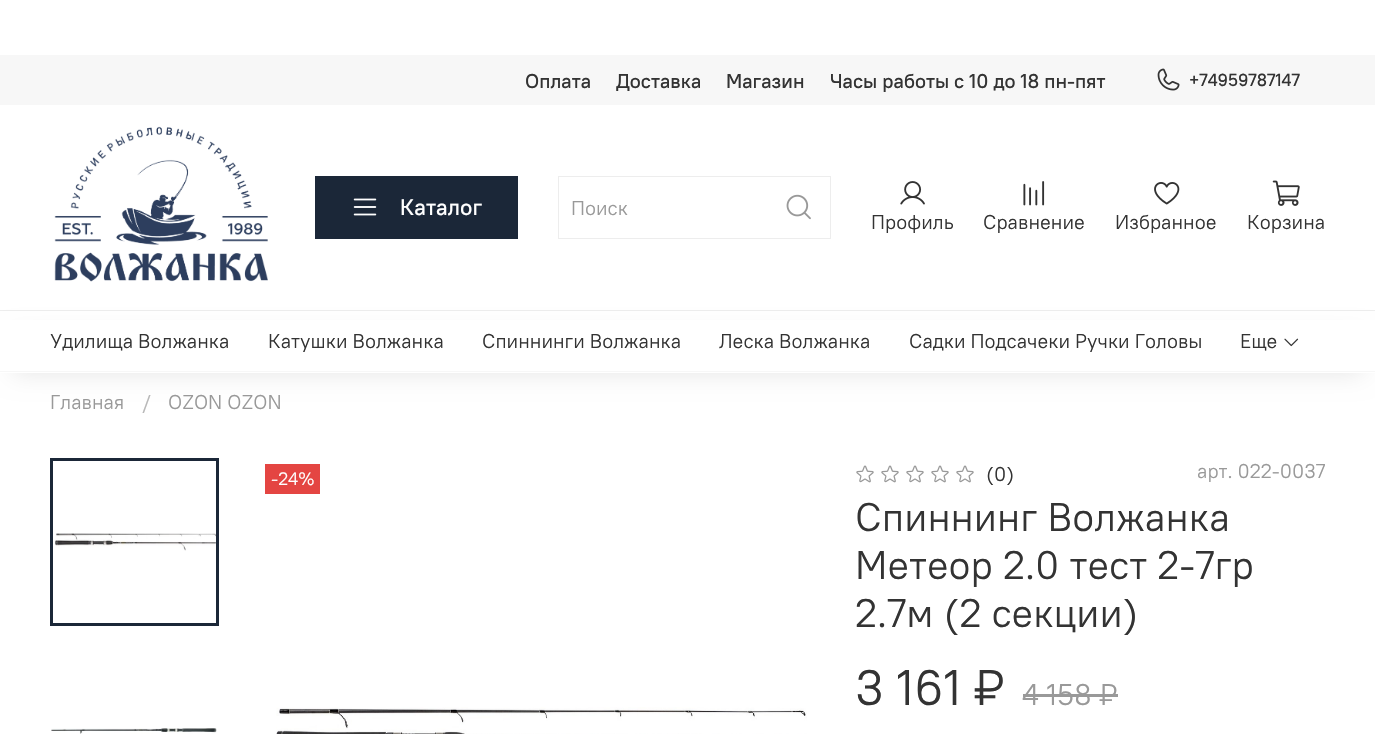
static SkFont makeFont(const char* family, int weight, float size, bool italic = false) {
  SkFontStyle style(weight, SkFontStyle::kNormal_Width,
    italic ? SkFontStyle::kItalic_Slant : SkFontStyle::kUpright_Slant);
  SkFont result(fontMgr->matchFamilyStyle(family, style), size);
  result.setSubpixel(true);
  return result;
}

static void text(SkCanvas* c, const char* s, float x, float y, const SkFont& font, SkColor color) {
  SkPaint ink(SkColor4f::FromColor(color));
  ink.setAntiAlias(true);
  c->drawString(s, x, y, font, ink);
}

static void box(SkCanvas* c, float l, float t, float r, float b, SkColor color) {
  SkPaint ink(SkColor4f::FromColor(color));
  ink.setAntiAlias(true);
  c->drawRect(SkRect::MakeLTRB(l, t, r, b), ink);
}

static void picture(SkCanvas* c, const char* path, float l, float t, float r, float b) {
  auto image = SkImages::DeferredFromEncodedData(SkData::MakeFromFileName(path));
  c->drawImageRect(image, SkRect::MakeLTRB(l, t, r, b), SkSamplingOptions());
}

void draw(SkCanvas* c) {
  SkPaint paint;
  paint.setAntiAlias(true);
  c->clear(0xffffffff);
  box(c, 0, 55, 1375, 105, 0xfff7f7f7);
  SkFont face1 = makeFont("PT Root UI", 500, 20);
  text(c, "Оплата", 525, 88, face1, 0xff333333);
  text(c, "Доставка", 616, 88, face1, 0xff333333);
  text(c, "Магазин", 726, 88, face1, 0xff333333);
  text(c, "Часы работы с 10 до 18 пн-пят", 830, 88, face1, 0xff333333);
  picture(c, "img_01.png", 1157, 68, 1180, 91);
  SkFont face2 = makeFont("PT Root UI", 500, 17.5f);
  text(c, "+74959787147", 1189, 86, face2, 0xff333333);
  box(c, 0, 310, 1375, 311, 0xffededed);
  picture(c, "img_02.png", 54, 126, 268, 282);
  box(c, 315, 176, 518, 239, 0xff1b2738);
  picture(c, "img_03.png", 353, 198, 377, 216);
  SkFont face3 = makeFont("PT Root UI", 500, 22.5f);
  text(c, "Каталог", 400, 215, face3, 0xffffffff);
  box(c, 558, 176, 831, 177, 0xffededed);
  box(c, 558, 238, 769, 239, 0xffededed);
  box(c, 558, 176, 559, 239, 0xffededed);
  SkFont face4 = makeFont("PT Root UI", 400, 20);
  text(c, "Поиск", 571, 215, face4, 0xff999999);
  box(c, 830, 176, 831, 239, 0xffededed);
  box(c, 769, 238, 831, 239, 0xffededed);
  picture(c, "img_04.png", 786, 194, 811, 220);
  picture(c, "img_05.png", 900, 181, 925, 205);
  text(c, "Профиль", 871, 229, face4, 0xff333333);
  picture(c, "img_06.png", 1023, 181, 1045, 206);
  text(c, "Сравнение", 983, 229, face4, 0xff333333);
  picture(c, "img_07.png", 1154, 182, 1180, 205);
  text(c, "Избранное", 1115, 229, face4, 0xff333333);
  picture(c, "img_08.png", 1272, 180, 1300, 206);
  text(c, "Корзина", 1247, 229, face4, 0xff333333);
  paint.setColor(0x1a000000);
  paint.setMaskFilter(SkMaskFilter::MakeBlur(kNormal_SkBlurStyle, 12.5f));
  c->drawRect(SkRect::MakeLTRB(13, 336, 1363, 373), paint);
  paint.setMaskFilter(nullptr);
  box(c, 0, 320, 1375, 373, 0xffffffff);
  box(c, 0, 371, 1375, 372, 0xfff7f7f7);
  text(c, "Удилища Волжанка", 50, 348, face4, 0xff333333);
  text(c, "Катушки Волжанка", 268, 348, face4, 0xff333333);
  text(c, "Спиннинги Волжанка", 482, 348, face4, 0xff333333);
  text(c, "Леска Волжанка", 719, 348, face4, 0xff333333);
  text(c, "Садки Подсачеки Ручки Головы", 909, 348, face4, 0xff333333);
  text(c, "Еще", 1240, 348, face4, 0xff333333);
  picture(c, "img_09.png", 1284, 338, 1299, 347);
  text(c, "Главная", 50, 409, face4, 0xff999999);
  text(c, "/", 142, 409, face4, 0xffb8b8b8);
  text(c, "OZON OZON", 168, 409, face4, 0xff999999);
  picture(c, "img_10.png", 54, 533, 216, 551);
  paint.setStyle(SkPaint::kStroke_Style);
  paint.setStrokeWidth(3);
  paint.setColor(0xff1b2738);
  c->drawRect(SkRect::MakeLTRB(51.5f, 459.5f, 217.5f, 624.5f), paint);
  picture(c, "img_11.png", 51, 728, 217, 734);
  box(c, 265, 464, 320, 494, 0xffe44542);
  SkFont face5 = makeFont("PT Root UI", 400, 18);
  text(c, "-24%", 271, 485, face5, 0xffffffff);
  picture(c, "img_12.png", 276, 707, 807, 734);
  picture(c, "img_13.png", 856, 465, 874, 483);
  picture(c, "img_13.png", 881, 465, 899, 483);
  picture(c, "img_13.png", 906, 465, 924, 483);
  picture(c, "img_13.png", 931, 465, 949, 483);
  picture(c, "img_13.png", 956, 465, 974, 483);
  text(c, "(0)", 986, 481, face4, 0xff333333);
  text(c, "арт. 022-0037", 1197, 478, face4, 0xff999999);
  SkFont face6 = makeFont("PT Root UI", 400, 40);
  text(c, "Спиннинг Волжанка", 855, 531, face6, 0xff333333);
  text(c, "Метеор 2.0 тест 2-7гр", 855, 579, face6, 0xff333333);
  text(c, "2.7м (2 секции)", 855, 627, face6, 0xff333333);
  SkFont face7 = makeFont("PT Root UI", 400, 50);
  text(c, "3 161 ₽", 855, 705, face7, 0xff333333);
  SkFont face8 = makeFont("PT Root UI", 400, 30);
  text(c, "4 158 ₽", 1022, 705, face8, 0xff999999);
  box(c, 1023, 694, 1118, 697, 0xff999999);
}
